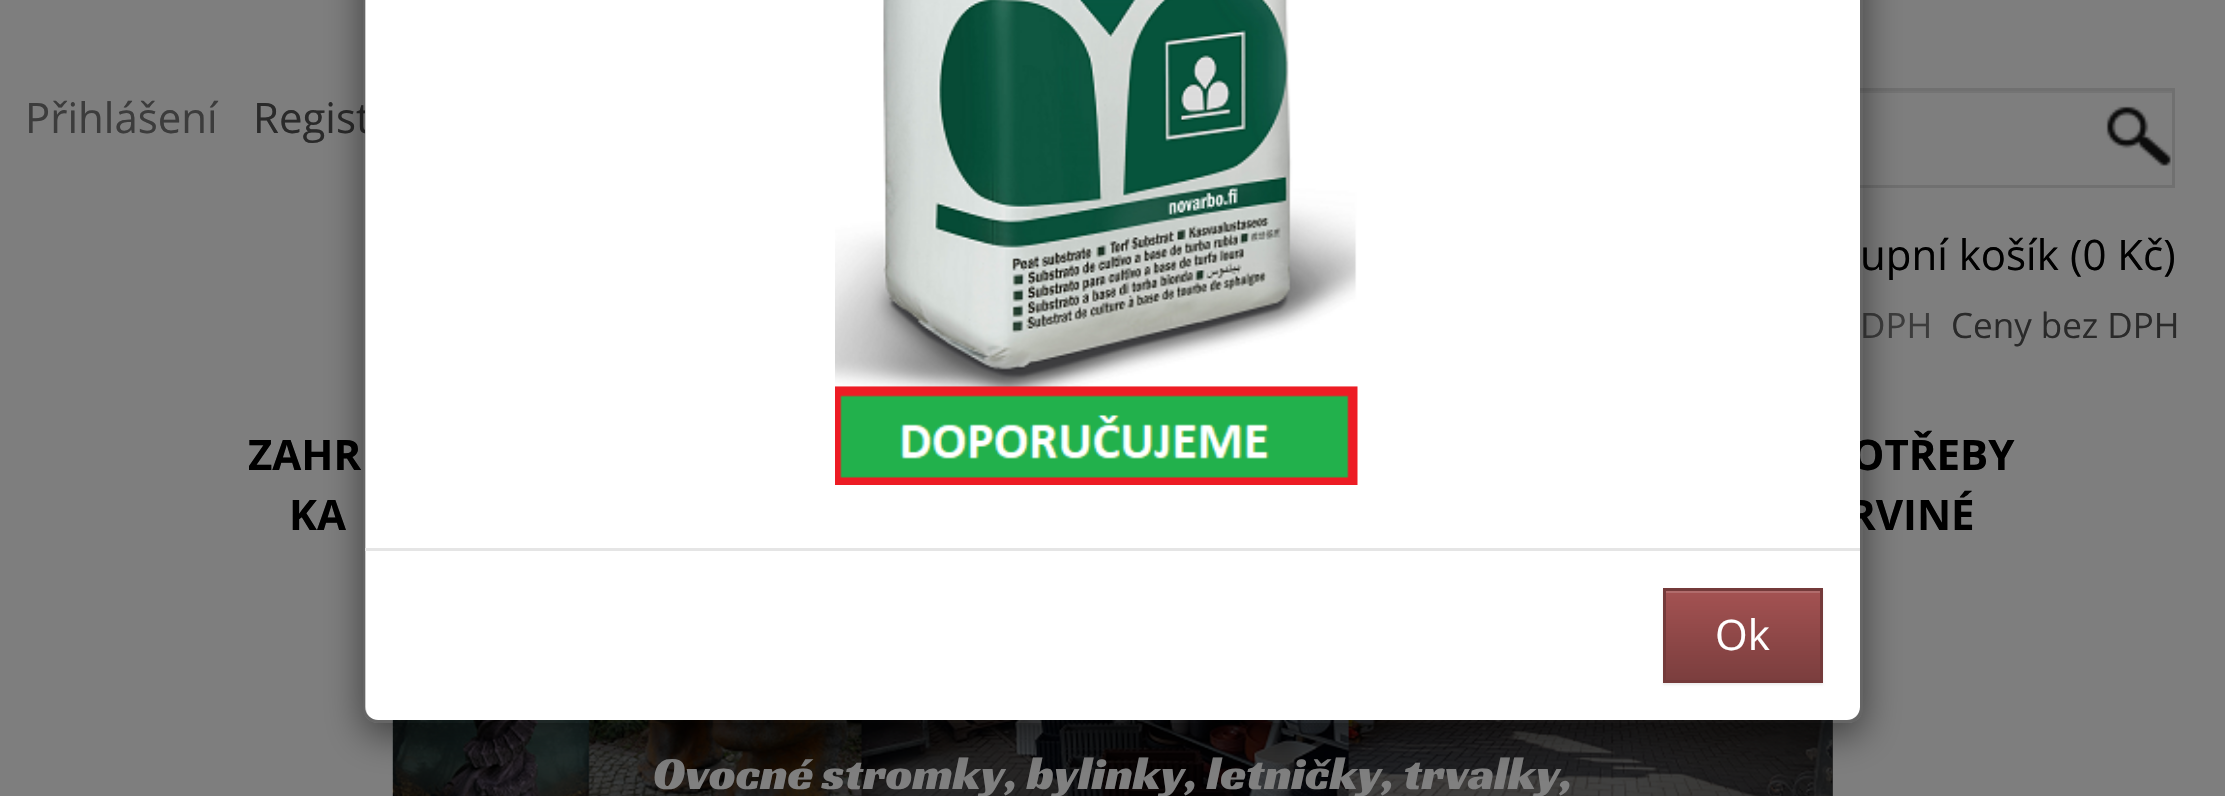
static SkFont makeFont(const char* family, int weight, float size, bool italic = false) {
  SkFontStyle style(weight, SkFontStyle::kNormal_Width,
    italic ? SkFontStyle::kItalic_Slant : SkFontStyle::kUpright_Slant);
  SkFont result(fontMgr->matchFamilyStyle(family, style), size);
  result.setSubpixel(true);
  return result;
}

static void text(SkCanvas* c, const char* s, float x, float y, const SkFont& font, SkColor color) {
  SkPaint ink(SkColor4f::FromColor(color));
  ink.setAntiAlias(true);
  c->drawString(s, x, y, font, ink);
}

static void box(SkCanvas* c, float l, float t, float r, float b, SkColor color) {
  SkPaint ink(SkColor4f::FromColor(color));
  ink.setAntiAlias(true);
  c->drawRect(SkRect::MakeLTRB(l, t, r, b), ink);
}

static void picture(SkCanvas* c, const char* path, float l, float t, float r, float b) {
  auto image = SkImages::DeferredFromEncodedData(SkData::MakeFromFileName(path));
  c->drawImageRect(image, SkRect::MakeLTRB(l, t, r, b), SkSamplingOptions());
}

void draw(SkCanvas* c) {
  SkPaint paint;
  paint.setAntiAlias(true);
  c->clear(0xff7e7e7e);
  SkFont face1 = makeFont("Open Sans", 400, 42);
  text(c, "Přihlášení", 25, 133, face1, 0xff3c3c3c);
  text(c, "Regist", 253, 133, face1, 0xff2a2a2a);
  picture(c, "img_01.png", 2106, 106, 2171, 166);
  box(c, 1860, 91, 2173, 93, 0xff747474);
  paint.setStyle(SkPaint::kStroke_Style);
  paint.setStrokeWidth(3);
  paint.setColor(0xff707070);
  c->drawRect(SkRect::MakeLTRB(1731.5f, 89.5f, 2173.5f, 186.5f), paint);
  text(c, "upní košík", 1860, 270, face1, 0xff000000);
  text(c, "(0 Kč)", 2070, 270, face1, 0xff000000);
  SkFont face2 = makeFont("Open Sans", 400, 35);
  text(c, "DPH", 1860, 338, face2, 0xff3c3c3c);
  text(c, "Ceny bez DPH", 1951, 338, face2, 0xff2a2a2a);
  SkFont face3 = makeFont("Open Sans", 700, 42);
  text(c, "ZAHR", 248, 470, face3, 0xff000000);
  text(c, "OTŘEBY", 1851, 470, face3, 0xff000000);
  text(c, "KA", 289, 530, face3, 0xff000000);
  text(c, "RVINÉ", 1848, 530, face3, 0xff000000);
  picture(c, "img_02.png", 392, 720, 1833, 796);
  paint.setStyle(SkPaint::kFill_Style);
  {
    const SkColor colors[] = {0x00000000, 0x40000000};
    const float stops[] = {0, 1};
    const SkPoint ends[] = {{1618, 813}, {1833, 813}};
    paint.setShader(SkGradientShader::MakeLinear(ends, colors, stops, 2, SkTileMode::kClamp));
    paint.setAlpha(255);
  }
  c->drawRect(SkRect::MakeLTRB(1637, 720, 1833, 796), paint);
  box(c, 393, 720, 1833, 796, 0x80000000);
  SkFont face4 = makeFont("Racing Sans One", 400, 46.7f);
  text(c, "Ovocné stromky, bylinky, letničky, trvalky,", 653, 789, face4, 0xff808080);
  c->save();
  c->clipPath(SkPathBuilder(SkPathFillType::kEvenOdd).moveTo(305, 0).lineTo(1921, 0).lineTo(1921, 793).lineTo(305, 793).close().moveTo(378, -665).lineTo(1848, -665).cubicTo(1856.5f, -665, 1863, -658.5f, 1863, -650).lineTo(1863, 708).cubicTo(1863, 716.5f, 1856.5f, 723, 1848, 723).lineTo(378, 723).cubicTo(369.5f, 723, 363, 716.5f, 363, 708).lineTo(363, -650).cubicTo(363, -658.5f, 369.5f, -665, 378, -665).close().detach(), true);
  paint.setShader(nullptr);
  paint.setColor(0x80000000);
  paint.setMaskFilter(SkMaskFilter::MakeBlur(kNormal_SkBlurStyle, 19));
  c->drawRoundRect(SkRect::MakeLTRB(363, -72, 1863, 735), 15, 15, paint);
  paint.setMaskFilter(nullptr);
  c->restore();
  paint.setColor(0xffffffff);
  c->drawPath(SkPathBuilder().moveTo(365, 0).lineTo(1860, 0).lineTo(1860, 707).cubicTo(1860, 714, 1854, 720, 1847, 720).lineTo(378, 720).cubicTo(371, 720, 365, 714, 365, 707).close().detach(), paint);
  paint.setStyle(SkPaint::kStroke_Style);
  paint.setColor(0x33000000);
  c->drawRoundRect(SkRect::MakeLTRB(364.5f, -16.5f, 1861.5f, 721.5f), 13.5f, 13.5f, paint);
  picture(c, "img_03.png", 835, 0, 1358, 485);
  box(c, 365, 548, 1860, 551, 0xffe5e5e5);
  paint.setStyle(SkPaint::kFill_Style);
  paint.setColor(0x12000000);
  paint.setMaskFilter(SkMaskFilter::MakeBlur(kNormal_SkBlurStyle, 1));
  c->drawRect(SkRect::MakeLTRB(1663, 590, 1823, 685), paint);
  paint.setMaskFilter(nullptr);
  {
    const SkColor colors[] = {0xffa45252, 0xff7b3e3e};
    const float stops[] = {0, 1};
    const SkPoint ends[] = {{1743, 590}, {1743, 680}};
    paint.setShader(SkGradientShader::MakeLinear(ends, colors, stops, 2, SkTileMode::kClamp));
    paint.setAlpha(255);
  }
  c->drawRect(SkRect::MakeLTRB(1666, 593, 1820, 680), paint);
  box(c, 1665, 591, 1820, 593, 0xffb16c6c);
  paint.setStyle(SkPaint::kStroke_Style);
  paint.setShader(nullptr);
  paint.setColor(0xff743a3a);
  c->drawRect(SkRect::MakeLTRB(1664.5f, 589.5f, 1821.5f, 681.5f), paint);
  text(c, "Ok", 1715, 650, face1, 0xffffffff);
}
